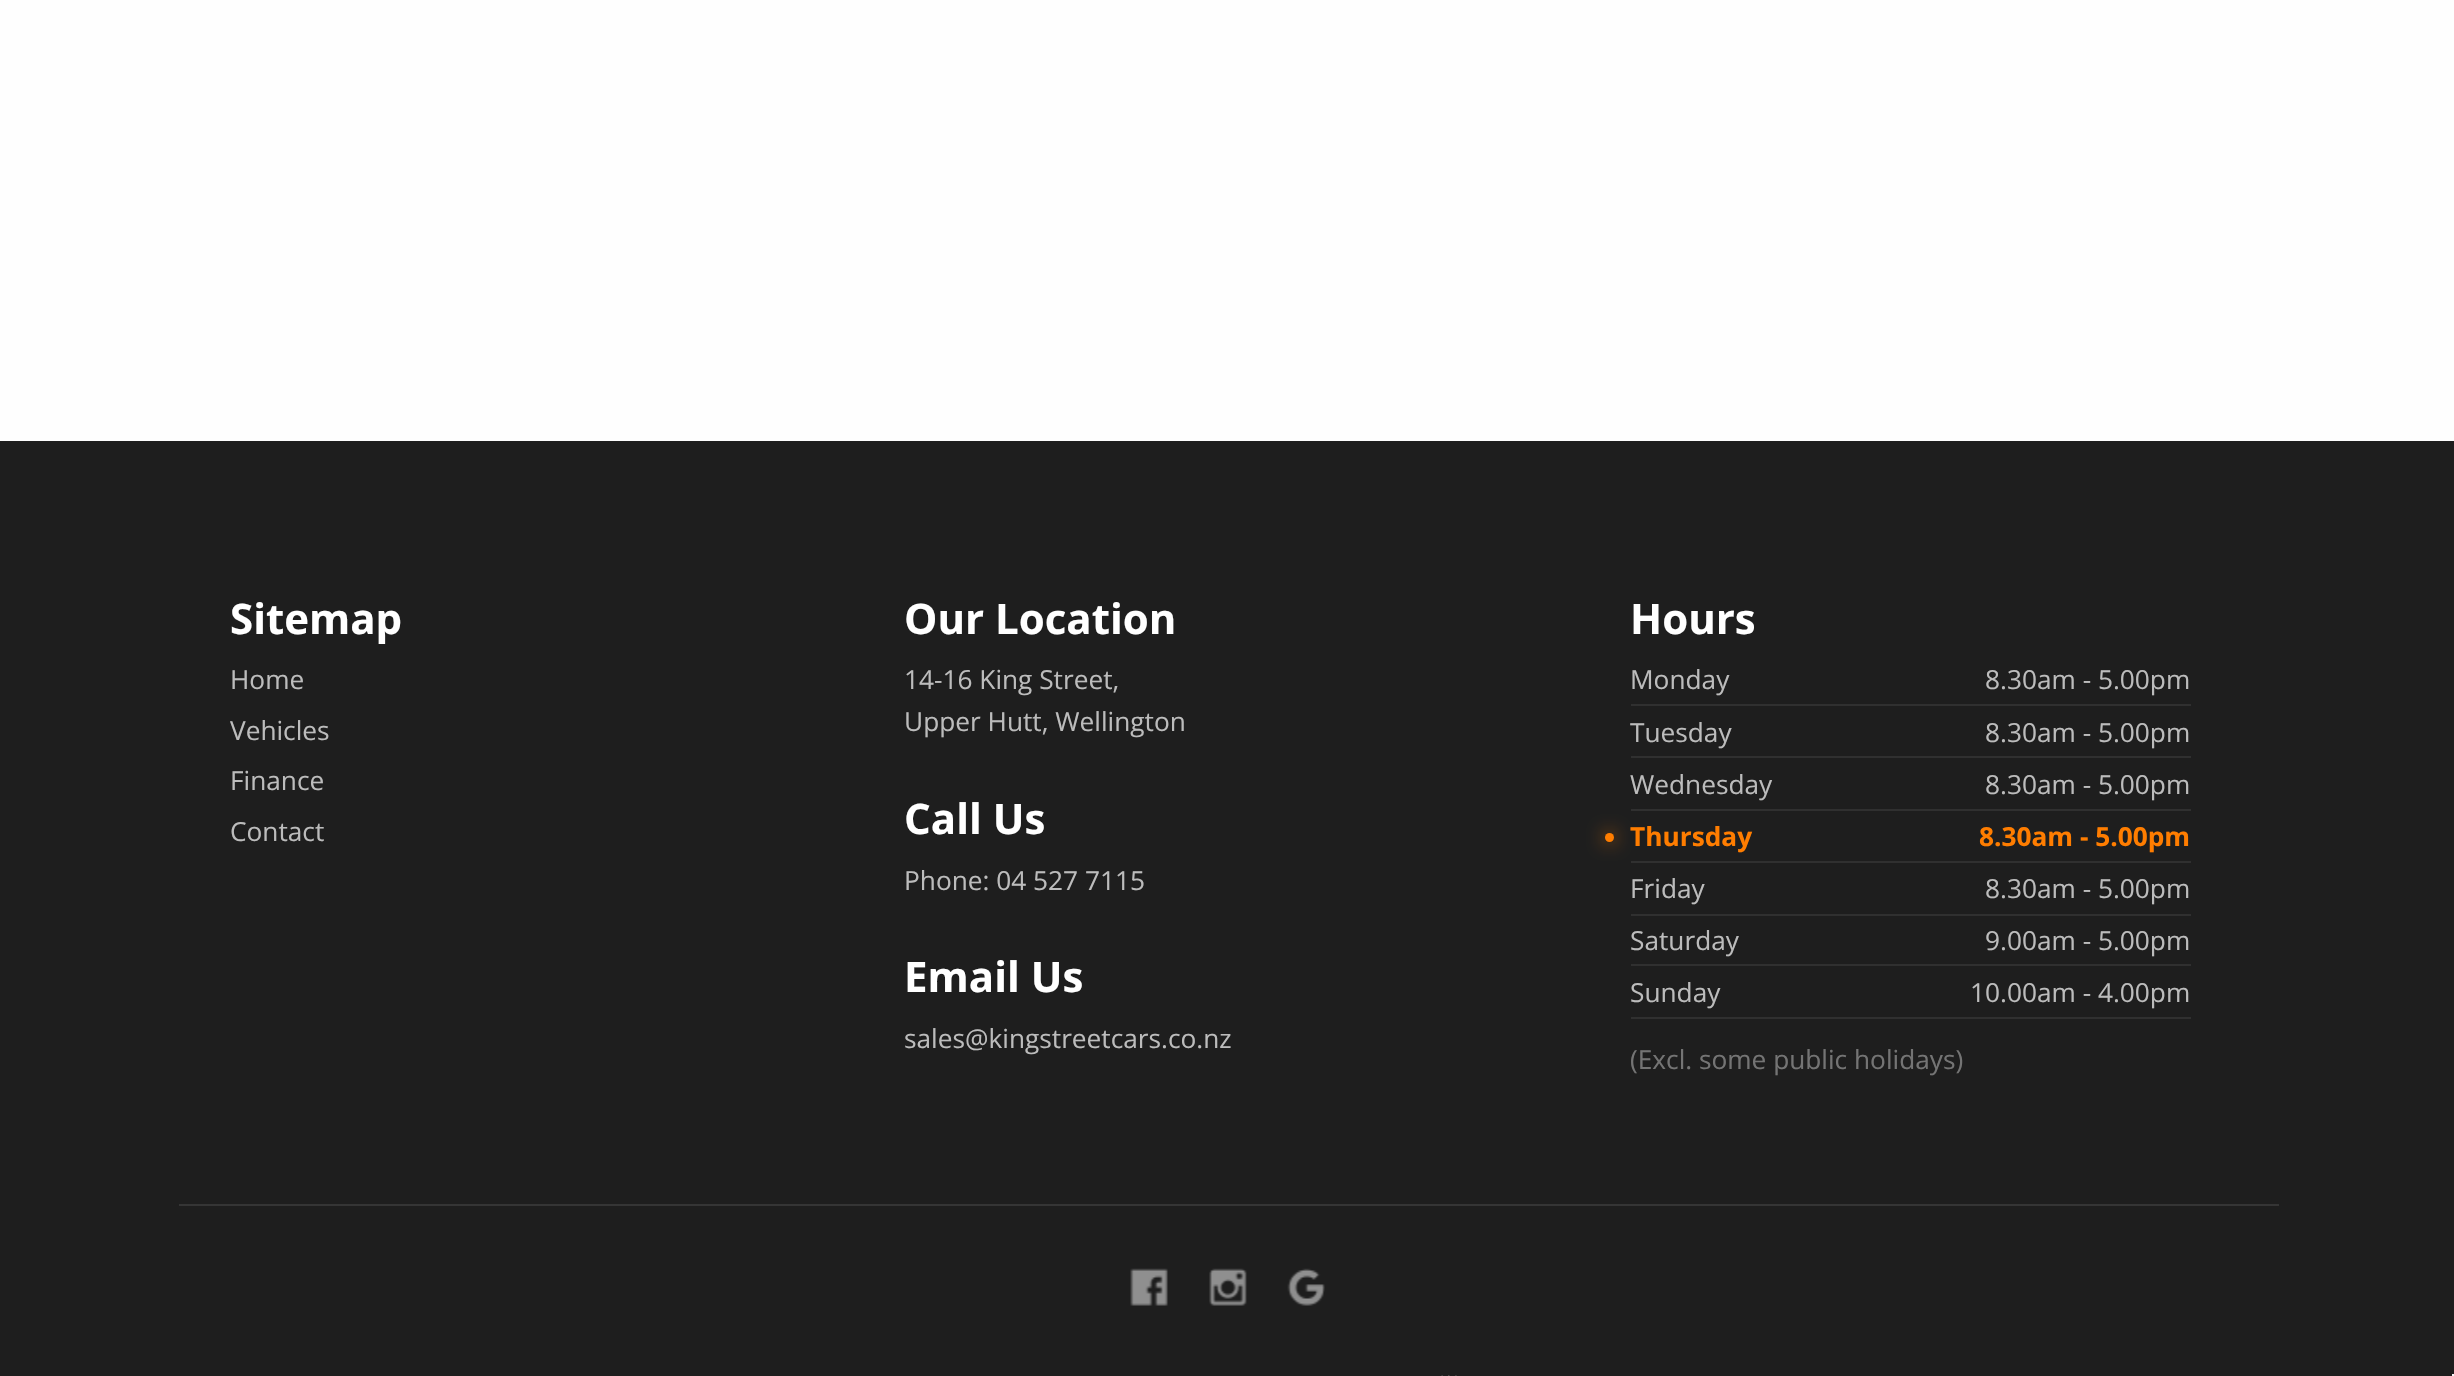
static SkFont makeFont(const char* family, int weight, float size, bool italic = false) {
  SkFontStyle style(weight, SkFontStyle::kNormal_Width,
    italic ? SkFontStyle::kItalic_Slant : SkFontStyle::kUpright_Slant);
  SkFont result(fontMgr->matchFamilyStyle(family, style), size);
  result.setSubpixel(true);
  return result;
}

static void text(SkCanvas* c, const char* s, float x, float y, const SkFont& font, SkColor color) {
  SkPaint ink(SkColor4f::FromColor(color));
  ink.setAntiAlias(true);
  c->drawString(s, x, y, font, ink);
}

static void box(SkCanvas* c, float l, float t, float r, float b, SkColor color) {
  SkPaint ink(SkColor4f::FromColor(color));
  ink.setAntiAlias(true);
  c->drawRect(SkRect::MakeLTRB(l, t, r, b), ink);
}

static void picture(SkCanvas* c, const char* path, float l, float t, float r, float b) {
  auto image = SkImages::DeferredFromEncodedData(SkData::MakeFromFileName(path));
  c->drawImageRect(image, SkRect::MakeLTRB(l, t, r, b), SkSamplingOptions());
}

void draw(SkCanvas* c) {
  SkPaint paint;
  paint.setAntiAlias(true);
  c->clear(0xfffefefe);
  box(c, 0, 441, 2454, 1376, 0xff1e1e1e);
  SkFont face1 = makeFont("Open Sans", 700, 42);
  text(c, "Sitemap", 230, 634, face1, 0xffffffff);
  SkFont face2 = makeFont("Open Sans", 400, 26.25f);
  text(c, "Home", 230, 689, face2, 0xffbcbcbc);
  text(c, "Vehicles", 230, 740, face2, 0xffbcbcbc);
  text(c, "Finance", 230, 790, face2, 0xffbcbcbc);
  text(c, "Contact", 230, 841, face2, 0xffbcbcbc);
  text(c, "Our Location", 904, 634, face1, 0xffffffff);
  text(c, "14-16 King Street,", 904, 689, face2, 0xffbcbcbc);
  text(c, "Upper Hutt, Wellington", 904, 731, face2, 0xffbcbcbc);
  text(c, "Call Us", 904, 834, face1, 0xffffffff);
  text(c, "Phone: 04 527 7115", 904, 890, face2, 0xffbcbcbc);
  text(c, "Email Us", 904, 992, face1, 0xffffffff);
  text(c, "sales@kingstreetcars.co.nz", 904, 1048, face2, 0xffbcbcbc);
  text(c, "Hours", 1630, 634, face1, 0xffffffff);
  box(c, 1631, 704, 2191, 706, 0xff303030);
  text(c, "Monday", 1630, 689, face2, 0xffbcbcbc);
  text(c, "8.30am - 5.00pm", 1985, 689, face2, 0xffbcbcbc);
  box(c, 1631, 756, 2191, 758, 0xff303030);
  text(c, "Tuesday", 1630, 742, face2, 0xffbcbcbc);
  text(c, "8.30am - 5.00pm", 1985, 742, face2, 0xffbcbcbc);
  box(c, 1631, 809, 2191, 811, 0xff303030);
  text(c, "Wednesday", 1630, 794, face2, 0xffbcbcbc);
  text(c, "8.30am - 5.00pm", 1985, 794, face2, 0xffbcbcbc);
  box(c, 1631, 861, 2191, 863, 0xff303030);
  paint.setColor(0xffff7d00);
  paint.setMaskFilter(SkMaskFilter::MakeBlur(kNormal_SkBlurStyle, 9));
  c->drawRoundRect(SkRect::MakeLTRB(1605, 833, 1614, 842), 4.5f, 4.5f, paint);
  paint.setMaskFilter(nullptr);
  c->drawCircle(1609.5f, 837.5f, 4.5f, paint);
  SkFont face3 = makeFont("Open Sans", 700, 26.25f);
  text(c, "Thursday", 1630, 846, face3, 0xffff7d00);
  text(c, "8.30am - 5.00pm", 1979, 846, face3, 0xffff7d00);
  box(c, 1631, 914, 2191, 916, 0xff303030);
  text(c, "Friday", 1630, 898, face2, 0xffbcbcbc);
  text(c, "8.30am - 5.00pm", 1985, 898, face2, 0xffbcbcbc);
  box(c, 1631, 964, 2191, 966, 0xff303030);
  text(c, "Saturday", 1630, 950, face2, 0xffbcbcbc);
  text(c, "9.00am - 5.00pm", 1985, 950, face2, 0xffbcbcbc);
  box(c, 1631, 1017, 2191, 1019, 0xff303030);
  text(c, "Sunday", 1630, 1002, face2, 0xffbcbcbc);
  text(c, "10.00am - 4.00pm", 1970, 1002, face2, 0xffbcbcbc);
  text(c, "(Excl. some public holidays)", 1630, 1069, face2, 0xff747474);
  box(c, 179, 1204, 2279, 1206, 0xff353535);
  picture(c, "img_01.png", 1130, 1268, 1168, 1306);
  picture(c, "img_02.png", 1209, 1268, 1247, 1306);
  picture(c, "img_03.png", 1287, 1268, 1325, 1306);
  picture(c, "img_04.png", 1441, 1375, 1457, 1376);
  box(c, 2452, 1374, 2454, 1376, 0xfff5f5f5);
}
